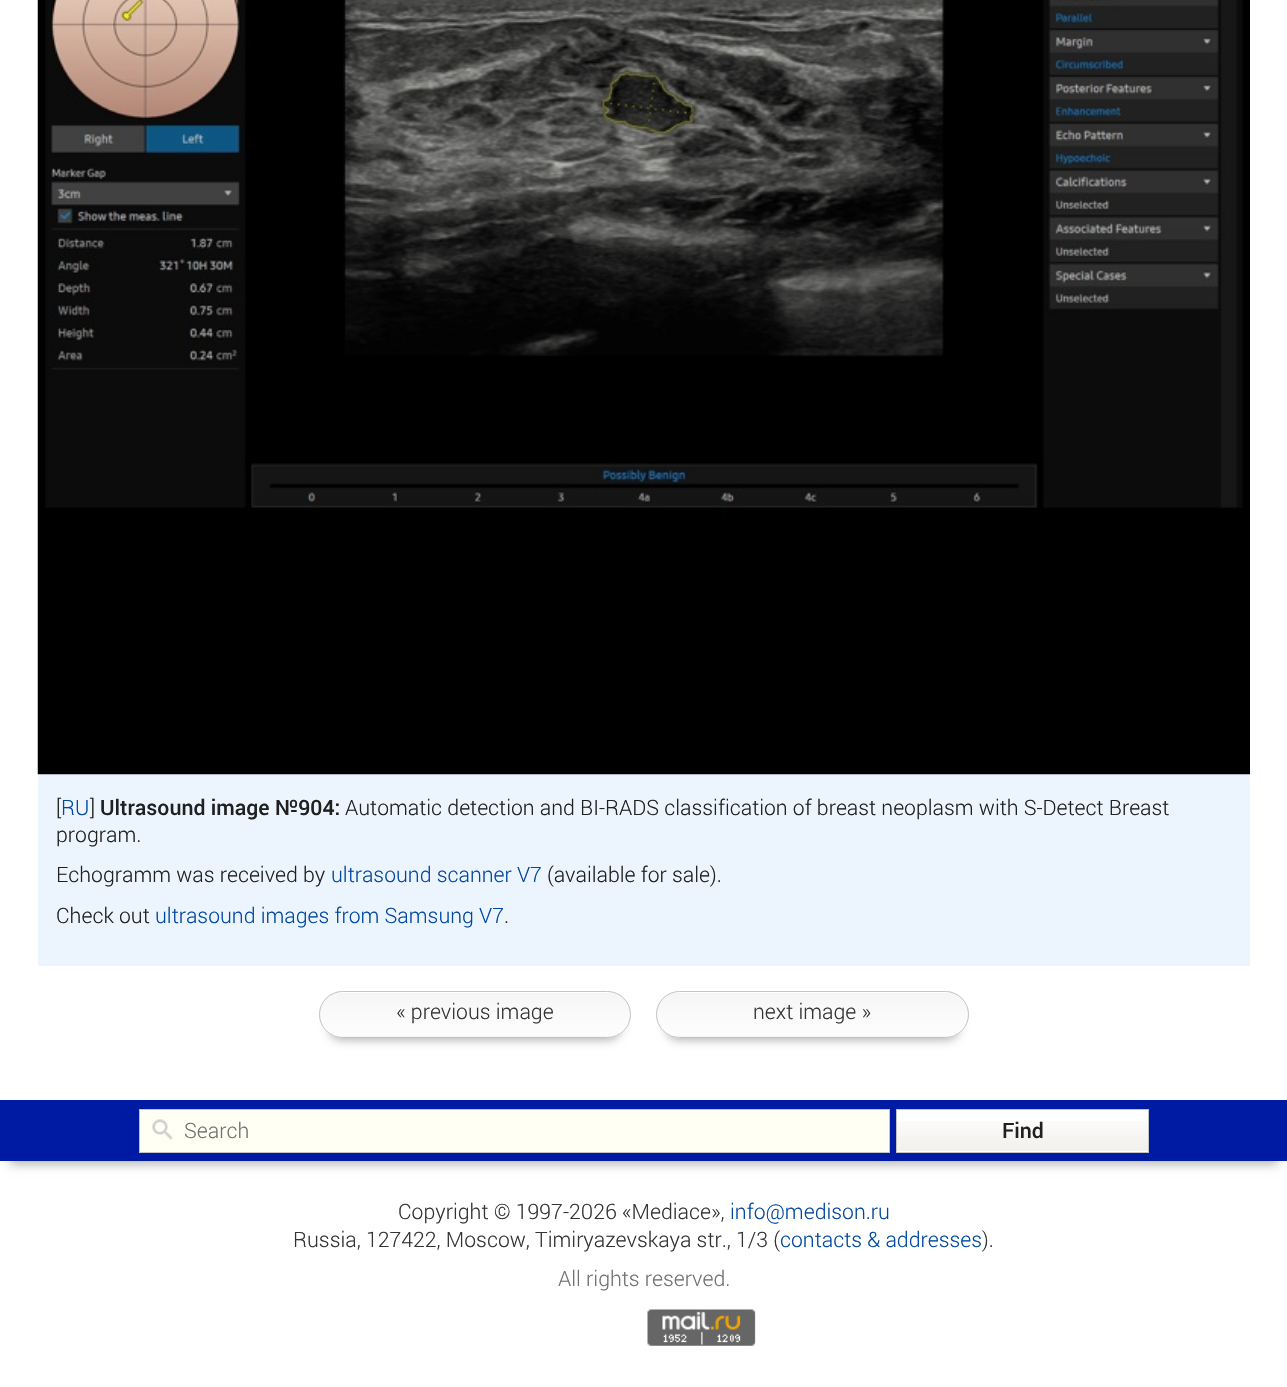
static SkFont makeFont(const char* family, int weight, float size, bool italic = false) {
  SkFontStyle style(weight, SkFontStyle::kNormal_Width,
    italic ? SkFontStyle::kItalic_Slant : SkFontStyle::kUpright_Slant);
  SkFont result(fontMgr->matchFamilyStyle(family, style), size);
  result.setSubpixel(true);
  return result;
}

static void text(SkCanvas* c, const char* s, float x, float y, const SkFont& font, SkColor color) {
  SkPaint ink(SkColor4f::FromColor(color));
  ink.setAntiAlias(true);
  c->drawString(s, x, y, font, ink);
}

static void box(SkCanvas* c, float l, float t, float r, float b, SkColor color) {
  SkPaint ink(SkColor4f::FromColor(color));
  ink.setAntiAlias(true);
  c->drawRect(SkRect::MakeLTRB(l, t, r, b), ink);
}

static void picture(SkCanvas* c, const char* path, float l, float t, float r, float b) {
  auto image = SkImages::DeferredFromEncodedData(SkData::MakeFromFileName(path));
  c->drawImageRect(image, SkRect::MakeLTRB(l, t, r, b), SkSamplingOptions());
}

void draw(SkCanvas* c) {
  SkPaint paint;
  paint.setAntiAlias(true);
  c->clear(0xffffffff);
  box(c, 38, 774, 1250, 966, 0xffecf4fe);
  picture(c, "img_01.png", 37, 0, 1250, 775);
  SkFont face1 = makeFont("Roboto", 300, 21.25f);
  text(c, "[", 56, 815, face1, 0xff202020);
  text(c, "RU", 61, 815, face1, 0xff0047a3);
  text(c, "]", 90, 815, face1, 0xff202020);
  SkFont face2 = makeFont("Roboto", 500, 21.25f);
  text(c, "Ultrasound image №904:", 100, 815, face2, 0xff202020);
  text(c, "Automatic detection and BI-RADS classification of breast neoplasm with S-Detect Breast", 345, 815, face1, 0xff202020);
  text(c, "program.", 56, 842, face1, 0xff202020);
  text(c, "Echogramm was received by", 56, 882, face1, 0xff202020);
  text(c, "ultrasound scanner V7", 331, 882, face1, 0xff0047a3);
  text(c, "(available for sale).", 547, 882, face1, 0xff202020);
  text(c, "Check out", 56, 923, face1, 0xff202020);
  text(c, "ultrasound images from Samsung V7", 155, 923, face1, 0xff0047a3);
  text(c, ".", 504, 923, face1, 0xff202020);
  paint.setColor(0x4d000000);
  paint.setMaskFilter(SkMaskFilter::MakeBlur(kNormal_SkBlurStyle, 5));
  c->drawRoundRect(SkRect::MakeLTRB(329, 1014, 621, 1040), 13, 13, paint);
  paint.setMaskFilter(nullptr);
  c->save();
  c->clipPath(SkPathBuilder().moveTo(342.5f, 991).lineTo(607.5f, 991).cubicTo(620.5f, 991, 631, 1001.5f, 631, 1014.5f).cubicTo(631, 1027.5f, 620.5f, 1038, 607.5f, 1038).lineTo(342.5f, 1038).cubicTo(329.5f, 1038, 319, 1027.5f, 319, 1014.5f).cubicTo(319, 1001.5f, 329.5f, 991, 342.5f, 991).close().detach(), true);
  {
    const SkColor colors[] = {0xfff5f5f5, 0xfffafafa, 0xfffdfdfd};
    const float stops[] = {0, 0.5f, 1};
    const SkPoint ends[] = {{475, 993}, {475, 1036}};
    paint.setShader(SkGradientShader::MakeLinear(ends, colors, stops, 3, SkTileMode::kClamp));
    paint.setAlpha(255);
  }
  c->drawRect(SkRect::MakeLTRB(319, 993, 631, 1036), paint);
  {
    const SkColor colors[] = {0xfff5f5f5, 0xfffafafa, 0xfffdfdfd};
    const float stops[] = {0, 0.5f, 1};
    const SkPoint ends[] = {{475, 1036}, {475, 1080}};
    paint.setShader(SkGradientShader::MakeLinear(ends, colors, stops, 3, SkTileMode::kClamp));
    paint.setAlpha(255);
  }
  c->drawRect(SkRect::MakeLTRB(333, 1036, 617, 1038), paint);
  c->restore();
  paint.setStyle(SkPaint::kStroke_Style);
  paint.setStrokeWidth(1);
  paint.setShader(nullptr);
  paint.setColor(0xffc3c3c4);
  c->drawRoundRect(SkRect::MakeLTRB(319.5f, 991.5f, 630.5f, 1037.5f), 23, 23, paint);
  text(c, "« previous image", 396, 1019, face1, 0xff333333);
  paint.setStyle(SkPaint::kFill_Style);
  paint.setColor(0x4d000000);
  paint.setMaskFilter(SkMaskFilter::MakeBlur(kNormal_SkBlurStyle, 5));
  c->drawRoundRect(SkRect::MakeLTRB(666, 1014, 959, 1040), 13, 13, paint);
  paint.setMaskFilter(nullptr);
  c->save();
  c->clipPath(SkPathBuilder().moveTo(679.5f, 991).lineTo(945.5f, 991).cubicTo(958.5f, 991, 969, 1001.5f, 969, 1014.5f).cubicTo(969, 1027.5f, 958.5f, 1038, 945.5f, 1038).lineTo(679.5f, 1038).cubicTo(666.5f, 1038, 656, 1027.5f, 656, 1014.5f).cubicTo(656, 1001.5f, 666.5f, 991, 679.5f, 991).close().detach(), true);
  {
    const SkColor colors[] = {0xfff5f5f5, 0xfffafafa, 0xfffdfdfd};
    const float stops[] = {0, 0.5f, 1};
    const SkPoint ends[] = {{813, 993}, {813, 1036}};
    paint.setShader(SkGradientShader::MakeLinear(ends, colors, stops, 3, SkTileMode::kClamp));
    paint.setAlpha(255);
  }
  c->drawRect(SkRect::MakeLTRB(656, 993, 969, 1036), paint);
  {
    const SkColor colors[] = {0xfff5f5f5, 0xfffafafa, 0xfffdfdfd};
    const float stops[] = {0, 0.5f, 1};
    const SkPoint ends[] = {{813, 1036}, {813, 1080}};
    paint.setShader(SkGradientShader::MakeLinear(ends, colors, stops, 3, SkTileMode::kClamp));
    paint.setAlpha(255);
  }
  c->drawRect(SkRect::MakeLTRB(670, 1036, 955, 1038), paint);
  c->restore();
  paint.setStyle(SkPaint::kStroke_Style);
  paint.setShader(nullptr);
  paint.setColor(0xffc3c3c4);
  c->drawRoundRect(SkRect::MakeLTRB(656.5f, 991.5f, 968.5f, 1037.5f), 23, 23, paint);
  text(c, "next image »", 753, 1019, face1, 0xff333333);
  paint.setStyle(SkPaint::kFill_Style);
  paint.setColor(0x4d000000);
  paint.setMaskFilter(SkMaskFilter::MakeBlur(kNormal_SkBlurStyle, 5));
  c->drawRect(SkRect::MakeLTRB(10, 1123, 1278, 1164), paint);
  paint.setMaskFilter(nullptr);
  box(c, 0, 1100, 1287, 1161, 0xff001ba3);
  box(c, 140, 1110, 889, 1152, 0xfffffff3);
  picture(c, "img_02.png", 152, 1119, 173, 1140);
  paint.setStyle(SkPaint::kStroke_Style);
  paint.setColor(0xffc4c4c4);
  c->drawRect(SkRect::MakeLTRB(139.5f, 1109.5f, 889.5f, 1152.5f), paint);
  text(c, "Search", 184, 1138, face1, 0xff707070);
  box(c, 897, 1110, 1148, 1152, 0xffffffff);
  picture(c, "img_03.png", 897, 1121, 1148, 1151);
  paint.setColor(0xffc3c3c4);
  c->drawRect(SkRect::MakeLTRB(896.5f, 1109.5f, 1148.5f, 1152.5f), paint);
  text(c, "Find", 1002, 1138, face2, 0xff202020);
  text(c, "Copyright © 1997-2026 «Mediace»,", 398, 1219, face1, 0xff333333);
  text(c, "info@medison.ru", 730, 1219, face1, 0xff0047a3);
  text(c, "Russia, 127422, Moscow, Timiryazevskaya str., 1/3 (", 293, 1247, face1, 0xff333333);
  text(c, "contacts & addresses", 780, 1247, face1, 0xff0047a3);
  text(c, ").", 982, 1247, face1, 0xff333333);
  text(c, "All rights reserved.", 558, 1286, face1, 0xff707070);
  picture(c, "img_04.png", 647, 1309, 756, 1346);
}
